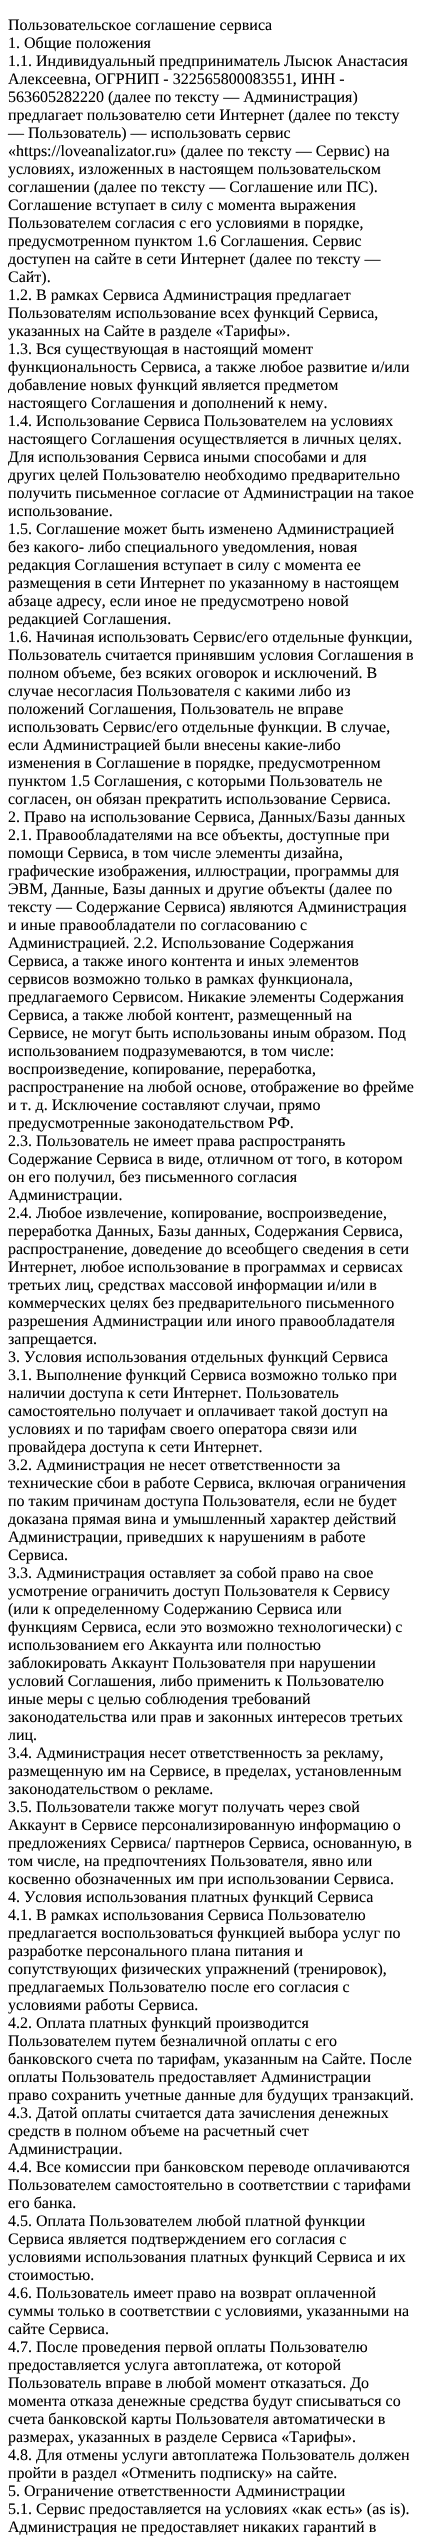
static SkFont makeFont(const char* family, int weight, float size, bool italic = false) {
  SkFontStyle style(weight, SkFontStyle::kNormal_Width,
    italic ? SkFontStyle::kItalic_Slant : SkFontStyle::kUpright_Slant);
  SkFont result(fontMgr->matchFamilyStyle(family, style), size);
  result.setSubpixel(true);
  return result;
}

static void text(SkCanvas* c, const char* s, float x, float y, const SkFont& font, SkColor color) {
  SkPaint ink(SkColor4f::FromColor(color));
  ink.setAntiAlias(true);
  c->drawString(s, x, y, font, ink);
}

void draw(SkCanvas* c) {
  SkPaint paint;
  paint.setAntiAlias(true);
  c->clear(0xffffffff);
  SkFont face1 = makeFont("Liberation Serif", 400, 16);
  text(c, "Пользовательское соглашение сервиса", 8, 30, face1, 0xff000000);
  text(c, "1. Общие положения", 8, 48, face1, 0xff000000);
  text(c, "1.1. Индивидуальный предприниматель Лысюк Анастасия", 8, 66, face1, 0xff000000);
  text(c, "Алексеевна, ОГРНИП - 322565800083551, ИНН -", 8, 84, face1, 0xff000000);
  text(c, "563605282220 (далее по тексту — Администрация)", 8, 102, face1, 0xff000000);
  text(c, "предлагает пользователю сети Интернет (далее по тексту", 8, 120, face1, 0xff000000);
  text(c, "— Пользователь) — использовать сервис", 8, 138, face1, 0xff000000);
  text(c, "«https://loveanalizator.ru» (далее по тексту — Сервис) на", 8, 156, face1, 0xff000000);
  text(c, "условиях, изложенных в настоящем пользовательском", 8, 174, face1, 0xff000000);
  text(c, "соглашении (далее по тексту — Соглашение или ПС).", 8, 192, face1, 0xff000000);
  text(c, "Соглашение вступает в силу с момента выражения", 8, 210, face1, 0xff000000);
  text(c, "Пользователем согласия с его условиями в порядке,", 8, 228, face1, 0xff000000);
  text(c, "предусмотренном пунктом 1.6 Соглашения. Сервис", 8, 246, face1, 0xff000000);
  text(c, "доступен на сайте в сети Интернет (далее по тексту —", 8, 264, face1, 0xff000000);
  text(c, "Сайт).", 8, 282, face1, 0xff000000);
  text(c, "1.2. В рамках Сервиса Администрация предлагает", 8, 300, face1, 0xff000000);
  text(c, "Пользователям использование всех функций Сервиса,", 8, 318, face1, 0xff000000);
  text(c, "указанных на Сайте в разделе «Тарифы».", 8, 336, face1, 0xff000000);
  text(c, "1.3. Вся существующая в настоящий момент", 8, 354, face1, 0xff000000);
  text(c, "функциональность Сервиса, а также любое развитие и/или", 8, 372, face1, 0xff000000);
  text(c, "добавление новых функций является предметом", 8, 390, face1, 0xff000000);
  text(c, "настоящего Соглашения и дополнений к нему.", 8, 408, face1, 0xff000000);
  text(c, "1.4. Использование Сервиса Пользователем на условиях", 8, 426, face1, 0xff000000);
  text(c, "настоящего Соглашения осуществляется в личных целях.", 8, 444, face1, 0xff000000);
  text(c, "Для использования Сервиса иными способами и для", 8, 462, face1, 0xff000000);
  text(c, "других целей Пользователю необходимо предварительно", 8, 480, face1, 0xff000000);
  text(c, "получить письменное согласие от Администрации на такое", 8, 498, face1, 0xff000000);
  text(c, "использование.", 8, 516, face1, 0xff000000);
  text(c, "1.5. Соглашение может быть изменено Администрацией", 8, 534, face1, 0xff000000);
  text(c, "без какого- либо специального уведомления, новая", 8, 552, face1, 0xff000000);
  text(c, "редакция Соглашения вступает в силу с момента ее", 8, 570, face1, 0xff000000);
  text(c, "размещения в сети Интернет по указанному в настоящем", 8, 588, face1, 0xff000000);
  text(c, "абзаце адресу, если иное не предусмотрено новой", 8, 606, face1, 0xff000000);
  text(c, "редакцией Соглашения.", 8, 624, face1, 0xff000000);
  text(c, "1.6. Начиная использовать Сервис/его отдельные функции,", 8, 642, face1, 0xff000000);
  text(c, "Пользователь считается принявшим условия Соглашения в", 8, 660, face1, 0xff000000);
  text(c, "полном объеме, без всяких оговорок и исключений. В", 8, 678, face1, 0xff000000);
  text(c, "случае несогласия Пользователя с какими либо из", 8, 696, face1, 0xff000000);
  text(c, "положений Соглашения, Пользователь не вправе", 8, 714, face1, 0xff000000);
  text(c, "использовать Сервис/его отдельные функции. В случае,", 8, 732, face1, 0xff000000);
  text(c, "если Администрацией были внесены какие-либо", 8, 750, face1, 0xff000000);
  text(c, "изменения в Соглашение в порядке, предусмотренном", 8, 768, face1, 0xff000000);
  text(c, "пунктом 1.5 Соглашения, с которыми Пользователь не", 8, 786, face1, 0xff000000);
  text(c, "согласен, он обязан прекратить использование Сервиса.", 8, 804, face1, 0xff000000);
  text(c, "2. Право на использование Сервиса, Данных/Базы данных", 8, 822, face1, 0xff000000);
  text(c, "2.1. Правообладателями на все объекты, доступные при", 8, 840, face1, 0xff000000);
  text(c, "помощи Сервиса, в том числе элементы дизайна,", 8, 858, face1, 0xff000000);
  text(c, "графические изображения, иллюстрации, программы для", 8, 876, face1, 0xff000000);
  text(c, "ЭВМ, Данные, Базы данных и другие объекты (далее по", 8, 894, face1, 0xff000000);
  text(c, "тексту — Содержание Сервиса) являются Администрация", 8, 912, face1, 0xff000000);
  text(c, "и иные правообладатели по согласованию с", 8, 930, face1, 0xff000000);
  text(c, "Администрацией. 2.2. Использование Содержания", 8, 948, face1, 0xff000000);
  text(c, "Сервиса, а также иного контента и иных элементов", 8, 966, face1, 0xff000000);
  text(c, "сервисов возможно только в рамках функционала,", 8, 984, face1, 0xff000000);
  text(c, "предлагаемого Сервисом. Никакие элементы Содержания", 8, 1002, face1, 0xff000000);
  text(c, "Сервиса, а также любой контент, размещенный на", 8, 1020, face1, 0xff000000);
  text(c, "Сервисе, не могут быть использованы иным образом. Под", 8, 1038, face1, 0xff000000);
  text(c, "использованием подразумеваются, в том числе:", 8, 1056, face1, 0xff000000);
  text(c, "воспроизведение, копирование, переработка,", 8, 1074, face1, 0xff000000);
  text(c, "распространение на любой основе, отображение во фрейме", 8, 1092, face1, 0xff000000);
  text(c, "и т. д. Исключение составляют случаи, прямо", 8, 1110, face1, 0xff000000);
  text(c, "предусмотренные законодательством РФ.", 8, 1128, face1, 0xff000000);
  text(c, "2.3. Пользователь не имеет права распространять", 8, 1146, face1, 0xff000000);
  text(c, "Содержание Сервиса в виде, отличном от того, в котором", 8, 1164, face1, 0xff000000);
  text(c, "он его получил, без письменного согласия", 8, 1182, face1, 0xff000000);
  text(c, "Администрации.", 8, 1200, face1, 0xff000000);
  text(c, "2.4. Любое извлечение, копирование, воспроизведение,", 8, 1218, face1, 0xff000000);
  text(c, "переработка Данных, Базы данных, Содержания Сервиса,", 8, 1236, face1, 0xff000000);
  text(c, "распространение, доведение до всеобщего сведения в сети", 8, 1254, face1, 0xff000000);
  text(c, "Интернет, любое использование в программах и сервисах", 8, 1272, face1, 0xff000000);
  text(c, "третьих лиц, средствах массовой информации и/или в", 8, 1290, face1, 0xff000000);
  text(c, "коммерческих целях без предварительного письменного", 8, 1308, face1, 0xff000000);
  text(c, "разрешения Администрации или иного правообладателя", 8, 1326, face1, 0xff000000);
  text(c, "запрещается.", 8, 1344, face1, 0xff000000);
  text(c, "3. Условия использования отдельных функций Сервиса", 8, 1362, face1, 0xff000000);
  text(c, "3.1. Выполнение функций Сервиса возможно только при", 8, 1380, face1, 0xff000000);
  text(c, "наличии доступа к сети Интернет. Пользователь", 8, 1398, face1, 0xff000000);
  text(c, "самостоятельно получает и оплачивает такой доступ на", 8, 1416, face1, 0xff000000);
  text(c, "условиях и по тарифам своего оператора связи или", 8, 1434, face1, 0xff000000);
  text(c, "провайдера доступа к сети Интернет.", 8, 1452, face1, 0xff000000);
  text(c, "3.2. Администрация не несет ответственности за", 8, 1470, face1, 0xff000000);
  text(c, "технические сбои в работе Сервиса, включая ограничения", 8, 1488, face1, 0xff000000);
  text(c, "по таким причинам доступа Пользователя, если не будет", 8, 1506, face1, 0xff000000);
  text(c, "доказана прямая вина и умышленный характер действий", 8, 1524, face1, 0xff000000);
  text(c, "Администрации, приведших к нарушениям в работе", 8, 1542, face1, 0xff000000);
  text(c, "Сервиса.", 8, 1560, face1, 0xff000000);
  text(c, "3.3. Администрация оставляет за собой право на свое", 8, 1578, face1, 0xff000000);
  text(c, "усмотрение ограничить доступ Пользователя к Сервису", 8, 1596, face1, 0xff000000);
  text(c, "(или к определенному Содержанию Сервиса или", 8, 1614, face1, 0xff000000);
  text(c, "функциям Сервиса, если это возможно технологически) с", 8, 1632, face1, 0xff000000);
  text(c, "использованием его Аккаунта или полностью", 8, 1650, face1, 0xff000000);
  text(c, "заблокировать Аккаунт Пользователя при нарушении", 8, 1668, face1, 0xff000000);
  text(c, "условий Соглашения, либо применить к Пользователю", 8, 1686, face1, 0xff000000);
  text(c, "иные меры с целью соблюдения требований", 8, 1704, face1, 0xff000000);
  text(c, "законодательства или прав и законных интересов третьих", 8, 1722, face1, 0xff000000);
  text(c, "лиц.", 8, 1740, face1, 0xff000000);
  text(c, "3.4. Администрация несет ответственность за рекламу,", 8, 1758, face1, 0xff000000);
  text(c, "размещенную им на Сервисе, в пределах, установленным", 8, 1776, face1, 0xff000000);
  text(c, "законодательством о рекламе.", 8, 1794, face1, 0xff000000);
  text(c, "3.5. Пользователи также могут получать через свой", 8, 1812, face1, 0xff000000);
  text(c, "Аккаунт в Сервисе персонализированную информацию о", 8, 1830, face1, 0xff000000);
  text(c, "предложениях Сервиса/ партнеров Сервиса, основанную, в", 8, 1848, face1, 0xff000000);
  text(c, "том числе, на предпочтениях Пользователя, явно или", 8, 1866, face1, 0xff000000);
  text(c, "косвенно обозначенных им при использовании Сервиса.", 8, 1884, face1, 0xff000000);
  text(c, "4. Условия использования платных функций Сервиса", 8, 1902, face1, 0xff000000);
  text(c, "4.1. В рамках использования Сервиса Пользователю", 8, 1920, face1, 0xff000000);
  text(c, "предлагается воспользоваться функцией выбора услуг по", 8, 1938, face1, 0xff000000);
  text(c, "разработке персонального плана питания и", 8, 1956, face1, 0xff000000);
  text(c, "сопутствующих физических упражнений (тренировок),", 8, 1974, face1, 0xff000000);
  text(c, "предлагаемых Пользователю после его согласия с", 8, 1992, face1, 0xff000000);
  text(c, "условиями работы Сервиса.", 8, 2010, face1, 0xff000000);
  text(c, "4.2. Оплата платных функций производится", 8, 2028, face1, 0xff000000);
  text(c, "Пользователем путем безналичной оплаты с его", 8, 2046, face1, 0xff000000);
  text(c, "банковского счета по тарифам, указанным на Сайте. После", 8, 2064, face1, 0xff000000);
  text(c, "оплаты Пользователь предоставляет Администрации", 8, 2082, face1, 0xff000000);
  text(c, "право сохранить учетные данные для будущих транзакций.", 8, 2100, face1, 0xff000000);
  text(c, "4.3. Датой оплаты считается дата зачисления денежных", 8, 2118, face1, 0xff000000);
  text(c, "средств в полном объеме на расчетный счет", 8, 2136, face1, 0xff000000);
  text(c, "Администрации.", 8, 2154, face1, 0xff000000);
  text(c, "4.4. Все комиссии при банковском переводе оплачиваются", 8, 2172, face1, 0xff000000);
  text(c, "Пользователем самостоятельно в соответствии с тарифами", 8, 2190, face1, 0xff000000);
  text(c, "его банка.", 8, 2208, face1, 0xff000000);
  text(c, "4.5. Оплата Пользователем любой платной функции", 8, 2226, face1, 0xff000000);
  text(c, "Сервиса является подтверждением его согласия с", 8, 2244, face1, 0xff000000);
  text(c, "условиями использования платных функций Сервиса и их", 8, 2262, face1, 0xff000000);
  text(c, "стоимостью.", 8, 2280, face1, 0xff000000);
  text(c, "4.6. Пользователь имеет право на возврат оплаченной", 8, 2298, face1, 0xff000000);
  text(c, "суммы только в соответствии с условиями, указанными на", 8, 2316, face1, 0xff000000);
  text(c, "сайте Сервиса.", 8, 2334, face1, 0xff000000);
  text(c, "4.7. После проведения первой оплаты Пользователю", 8, 2352, face1, 0xff000000);
  text(c, "предоставляется услуга автоплатежа, от которой", 8, 2370, face1, 0xff000000);
  text(c, "Пользователь вправе в любой момент отказаться. До", 8, 2388, face1, 0xff000000);
  text(c, "момента отказа денежные средства будут списываться со", 8, 2406, face1, 0xff000000);
  text(c, "счета банковской карты Пользователя автоматически в", 8, 2424, face1, 0xff000000);
  text(c, "размерах, указанных в разделе Сервиса «Тарифы».", 8, 2442, face1, 0xff000000);
  text(c, "4.8. Для отмены услуги автоплатежа Пользователь должен", 8, 2460, face1, 0xff000000);
  text(c, "пройти в раздел «Отменить подписку» на сайте.", 8, 2478, face1, 0xff000000);
  text(c, "5. Ограничение ответственности Администрации", 8, 2496, face1, 0xff000000);
  text(c, "5.1. Сервис предоставляется на условиях «как есть» (as is).", 8, 2514, face1, 0xff000000);
  text(c, "Администрация не предоставляет никаких гарантий в", 8, 2532, face1, 0xff000000);
}
